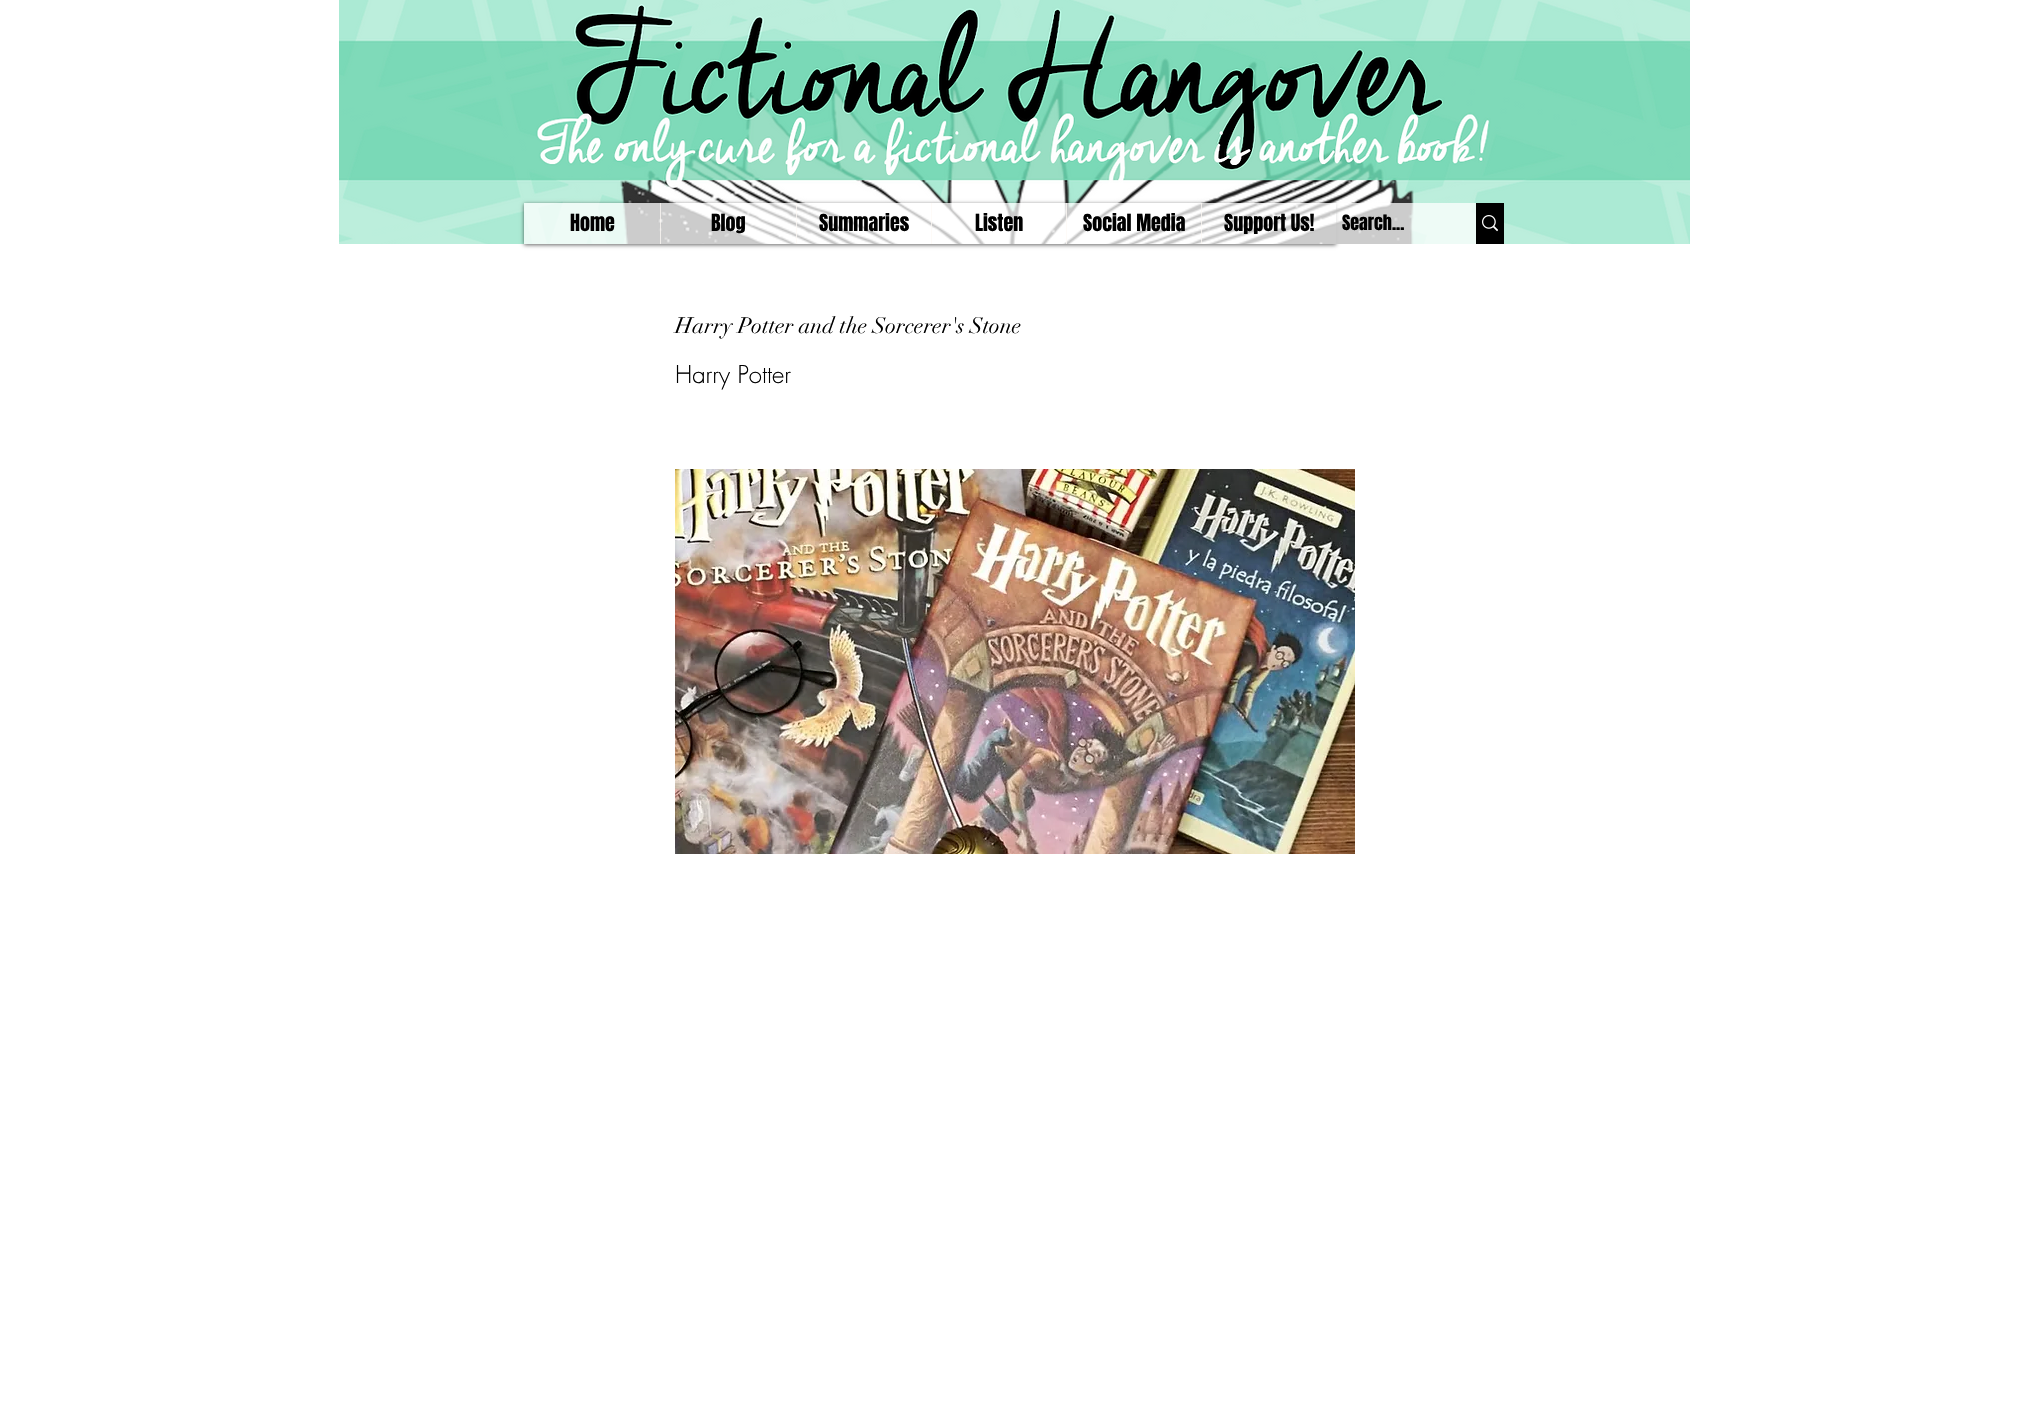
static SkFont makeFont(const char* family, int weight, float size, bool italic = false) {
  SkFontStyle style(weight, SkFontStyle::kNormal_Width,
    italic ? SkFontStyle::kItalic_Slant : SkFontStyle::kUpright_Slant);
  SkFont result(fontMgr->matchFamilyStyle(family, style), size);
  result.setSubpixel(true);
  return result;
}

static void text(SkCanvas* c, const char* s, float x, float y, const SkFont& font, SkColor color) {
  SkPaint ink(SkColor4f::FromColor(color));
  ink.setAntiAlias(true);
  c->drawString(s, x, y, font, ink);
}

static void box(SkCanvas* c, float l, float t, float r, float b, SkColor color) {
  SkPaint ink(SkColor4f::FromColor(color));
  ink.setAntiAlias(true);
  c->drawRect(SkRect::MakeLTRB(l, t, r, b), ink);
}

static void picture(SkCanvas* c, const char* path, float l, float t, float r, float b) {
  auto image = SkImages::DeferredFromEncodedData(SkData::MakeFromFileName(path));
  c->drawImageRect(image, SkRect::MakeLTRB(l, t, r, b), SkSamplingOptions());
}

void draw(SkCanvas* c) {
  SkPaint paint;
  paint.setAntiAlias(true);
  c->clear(0xffffffff);
  picture(c, "img_01.png", 339, 0, 1690, 244);
  c->save();
  c->clipPath(SkPathBuilder(SkPathFillType::kEvenOdd).moveTo(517, 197).lineTo(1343, 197).lineTo(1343, 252).lineTo(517, 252).close().moveTo(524, 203).lineTo(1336, 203).lineTo(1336, 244).lineTo(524, 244).close().detach(), true);
  paint.setColor(0x99000000);
  paint.setMaskFilter(SkMaskFilter::MakeBlur(kNormal_SkBlurStyle, 2));
  c->drawRect(SkRect::MakeLTRB(524, 204, 1336, 245), paint);
  paint.setMaskFilter(nullptr);
  c->restore();
  box(c, 524, 203, 1336, 244, 0xbfffffff);
  SkFont face1 = makeFont("Anton", 400, 20);
  text(c, "Home", 570, 231, face1, 0xff000000);
  box(c, 660, 203, 661, 244, 0xbffdfaf5);
  text(c, "Blog", 711, 231, face1, 0xff000000);
  box(c, 796, 203, 797, 244, 0xbffdfaf5);
  text(c, "Summaries", 819, 231, face1, 0xff000000);
  box(c, 931, 203, 932, 244, 0xbffdfaf5);
  text(c, "Listen", 975, 231, face1, 0xff000000);
  box(c, 1066, 203, 1067, 244, 0xbffdfaf5);
  text(c, "Social Media", 1083, 231, face1, 0xff000000);
  box(c, 1201, 203, 1202, 244, 0xbffdfaf5);
  text(c, "Support Us!", 1224, 231, face1, 0xff000000);
  box(c, 1336, 203, 1476, 244, 0xbfffffff);
  SkFont face2 = makeFont("Anton", 400, 18);
  text(c, "Search...", 1342, 230, face2, 0xff000000);
  box(c, 1476, 203, 1504, 244, 0xff000000);
  picture(c, "img_02.png", 1482, 215, 1498, 232);
  SkFont face3 = makeFont("didot", 400, 22);
  text(c, "Harry Potter and the Sorcerer's Stone", 675, 333, face3, 0xff000000);
  SkFont face4 = makeFont("futura", 300, 24);
  text(c, "Harry Potter", 675, 383, face4, 0xff000000);
  picture(c, "img_03.png", 675, 469, 1355, 854);
}
